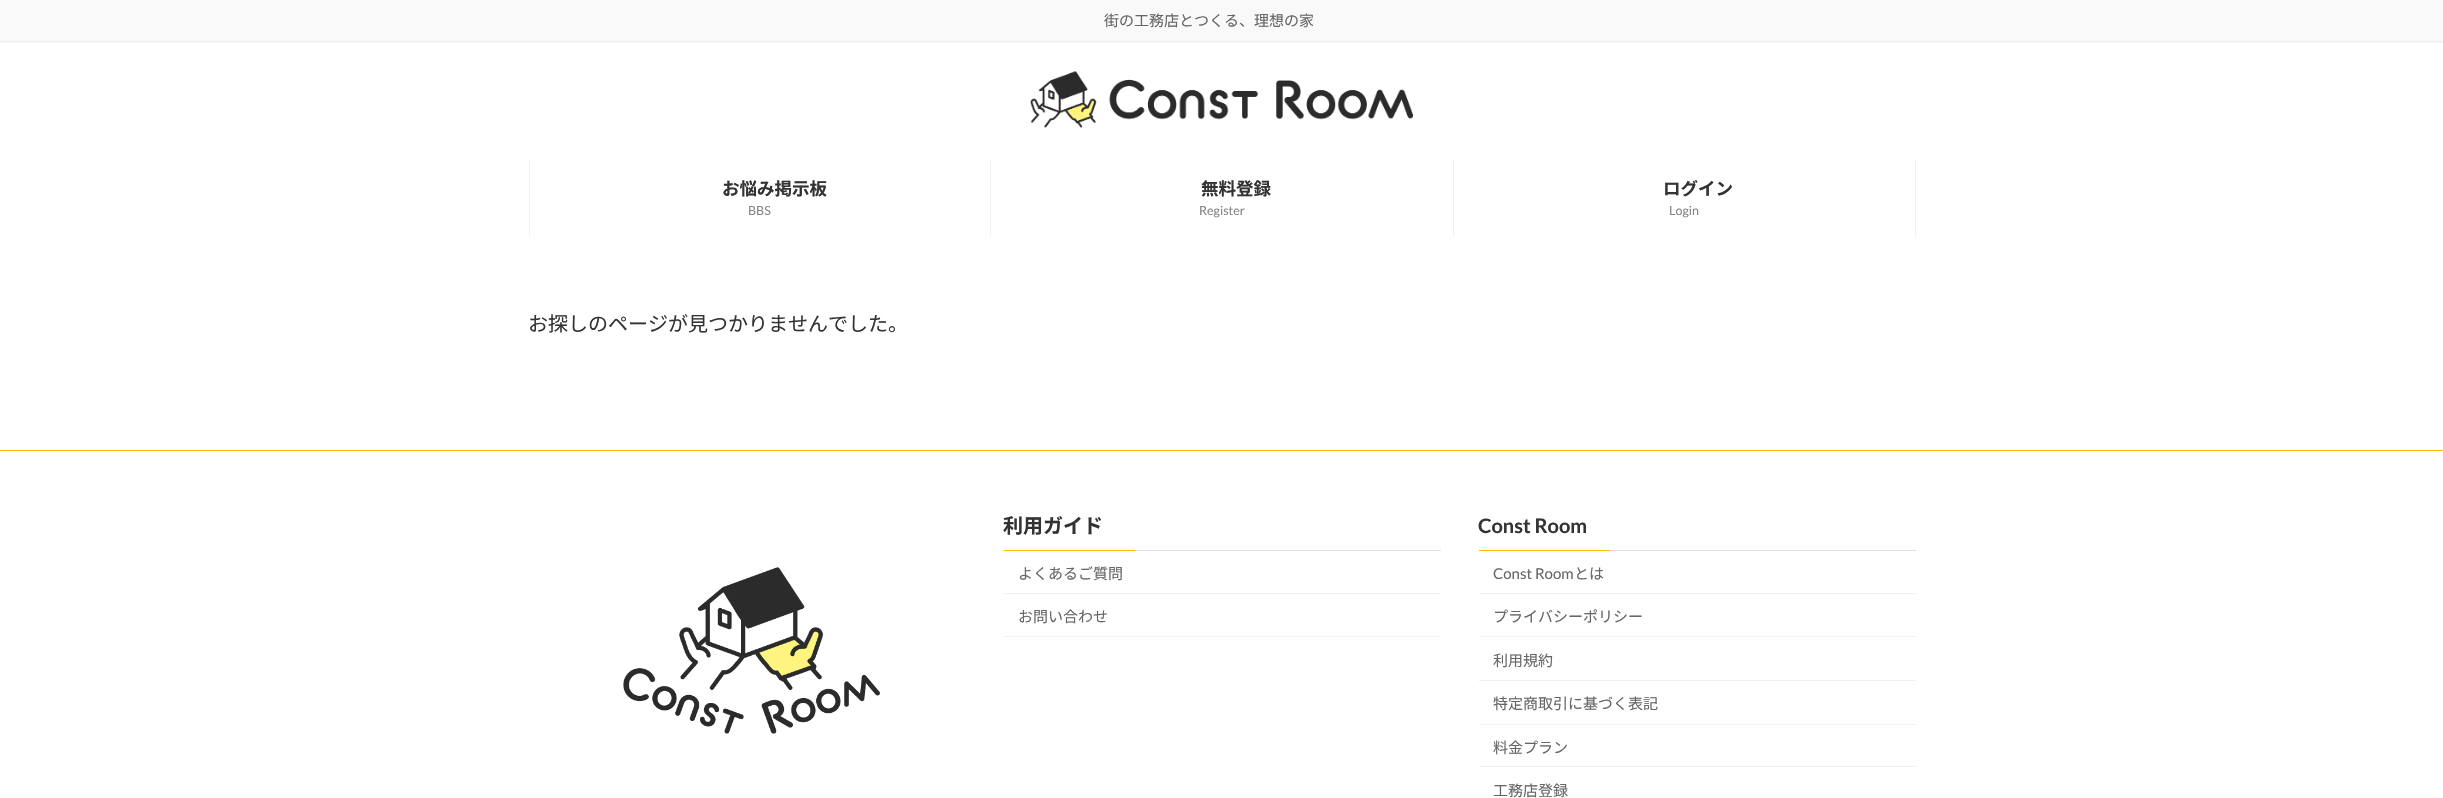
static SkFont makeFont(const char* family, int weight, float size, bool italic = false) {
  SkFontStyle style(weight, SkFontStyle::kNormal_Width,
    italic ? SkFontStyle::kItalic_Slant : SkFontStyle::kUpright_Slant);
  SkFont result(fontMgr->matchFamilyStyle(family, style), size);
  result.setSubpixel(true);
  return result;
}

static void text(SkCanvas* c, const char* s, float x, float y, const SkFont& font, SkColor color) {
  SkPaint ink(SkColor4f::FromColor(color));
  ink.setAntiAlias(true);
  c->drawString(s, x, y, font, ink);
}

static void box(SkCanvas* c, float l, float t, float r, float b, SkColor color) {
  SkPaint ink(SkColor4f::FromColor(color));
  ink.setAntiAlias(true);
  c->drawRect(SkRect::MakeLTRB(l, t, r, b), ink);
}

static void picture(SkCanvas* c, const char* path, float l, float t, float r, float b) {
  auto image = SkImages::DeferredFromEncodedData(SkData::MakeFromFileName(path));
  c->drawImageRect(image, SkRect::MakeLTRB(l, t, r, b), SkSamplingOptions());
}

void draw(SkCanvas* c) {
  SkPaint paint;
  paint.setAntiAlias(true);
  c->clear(0xffffffff);
  box(c, 0, 0, 2443, 43, 0xfff9f9f9);
  box(c, 0, 41, 2443, 42, 0xffefefef);
  SkFont face1 = makeFont("Noto Sans JP", 400, 15);
  text(c, "街の工務店とつくる、理想の家", 1104, 26, face1, 0xff666666);
  picture(c, "img_01.png", 1030, 71, 1414, 128);
  box(c, 990, 159, 991, 236, 0xfff0f0f0);
  box(c, 529, 159, 530, 236, 0xfff0f0f0);
  SkFont face2 = makeFont("Noto Sans JP", 700, 17.5f);
  text(c, "お悩み掲示板", 722, 195, face2, 0xff333333);
  SkFont face3 = makeFont("Lato", 400, 12.5f);
  text(c, "BBS", 748, 215, face3, 0xff858585);
  box(c, 1453, 159, 1454, 236, 0xfff0f0f0);
  text(c, "無料登録", 1201, 195, face2, 0xff333333);
  text(c, "Register", 1199, 215, face3, 0xff858585);
  box(c, 1915, 159, 1916, 236, 0xfff0f0f0);
  text(c, "ログイン", 1663, 195, face2, 0xff333333);
  text(c, "Login", 1669, 215, face3, 0xff858585);
  SkFont face4 = makeFont("Noto Sans JP", 400, 20);
  text(c, "お探しのページが見つかりませんでした。", 528, 331, face4, 0xff333333);
  box(c, 0, 450, 2443, 451, 0xfffcb900);
  picture(c, "img_02.png", 623, 567, 880, 734);
  box(c, 1135, 550, 1441, 551, 0xffe0e0e0);
  SkFont face5 = makeFont("Noto Sans JP", 700, 20);
  text(c, "利用ガイド", 1003, 533, face5, 0xff333333);
  box(c, 1004, 550, 1135, 551, 0xfffcb900);
  box(c, 1004, 593, 1441, 594, 0xfff0f0f0);
  text(c, "よくあるご質問", 1018, 579, face1, 0xff666666);
  box(c, 1004, 636, 1441, 637, 0xfff0f0f0);
  text(c, "お問い合わせ", 1018, 622, face1, 0xff666666);
  box(c, 1610, 550, 1916, 551, 0xffe0e0e0);
  SkFont face6 = makeFont("Lato", 700, 20);
  text(c, "Const Room", 1478, 533, face6, 0xff333333);
  box(c, 1479, 550, 1610, 551, 0xfffcb900);
  box(c, 1479, 593, 1916, 594, 0xfff0f0f0);
  SkFont face7 = makeFont("Lato", 400, 15);
  text(c, "Const Room", 1493, 579, face7, 0xff666666);
  text(c, "とは", 1574, 579, face1, 0xff666666);
  box(c, 1479, 636, 1916, 637, 0xfff0f0f0);
  text(c, "プライバシーポリシー", 1493, 622, face1, 0xff666666);
  box(c, 1479, 680, 1916, 681, 0xfff0f0f0);
  text(c, "利用規約", 1493, 666, face1, 0xff666666);
  box(c, 1479, 724, 1916, 725, 0xfff0f0f0);
  text(c, "特定商取引に基づく表記", 1493, 709, face1, 0xff666666);
  box(c, 1479, 766, 1916, 767, 0xfff0f0f0);
  text(c, "料金プラン", 1493, 753, face1, 0xff666666);
  text(c, "工務店登録", 1493, 796, face1, 0xff666666);
}
